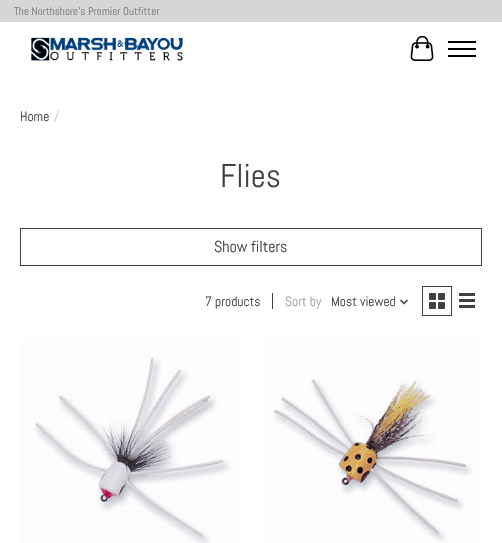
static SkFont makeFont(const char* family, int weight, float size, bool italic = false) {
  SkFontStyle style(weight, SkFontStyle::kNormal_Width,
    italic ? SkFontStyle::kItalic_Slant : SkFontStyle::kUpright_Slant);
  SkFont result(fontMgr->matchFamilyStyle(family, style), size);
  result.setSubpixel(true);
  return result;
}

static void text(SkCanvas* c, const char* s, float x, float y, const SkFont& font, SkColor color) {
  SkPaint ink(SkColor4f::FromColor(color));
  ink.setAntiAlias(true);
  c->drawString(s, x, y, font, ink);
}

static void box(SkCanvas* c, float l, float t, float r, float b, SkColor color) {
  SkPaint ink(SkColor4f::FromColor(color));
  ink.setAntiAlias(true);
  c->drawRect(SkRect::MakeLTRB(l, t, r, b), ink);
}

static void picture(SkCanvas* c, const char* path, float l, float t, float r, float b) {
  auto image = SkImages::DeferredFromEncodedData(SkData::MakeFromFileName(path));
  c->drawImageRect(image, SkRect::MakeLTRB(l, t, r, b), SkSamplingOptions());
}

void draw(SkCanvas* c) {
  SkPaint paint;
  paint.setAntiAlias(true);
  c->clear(0xffffffff);
  box(c, 0, 0, 502, 22, 0xffd6d6d6);
  SkFont face1 = makeFont("Abel", 400, 11.1f);
  text(c, "The Northshore's Premier Outfitter", 14, 15, face1, 0xff797979);
  picture(c, "img_01.png", 31, 37, 183, 61);
  picture(c, "img_02.png", 410, 36, 434, 61);
  box(c, 448, 48, 476, 50, 0xff000000);
  box(c, 448, 41, 476, 43, 0xff000000);
  box(c, 448, 55, 476, 57, 0xff000000);
  SkFont face2 = makeFont("Abel", 400, 13.5f);
  text(c, "Home", 20, 121, face2, 0xff414141);
  text(c, "/", 54, 121, face2, 0xffc6c6c6);
  SkFont face3 = makeFont("Abel", 400, 33);
  text(c, "Flies", 220, 187, face3, 0xff414141);
  paint.setStyle(SkPaint::kStroke_Style);
  paint.setStrokeWidth(1);
  paint.setColor(0xff414141);
  c->drawRect(SkRect::MakeLTRB(20.5f, 228.5f, 481.5f, 265.5f), paint);
  SkFont face4 = makeFont("Abel", 400, 16);
  text(c, "Show filters", 214, 252, face4, 0xff414141);
  text(c, "7 products", 205, 306, face2, 0xff414141);
  box(c, 272, 293, 273, 309, 0xff414141);
  text(c, "Sort by", 285, 306, face2, 0xffa0a0a0);
  text(c, "Most viewed", 331, 306, face2, 0xff414141);
  picture(c, "img_03.png", 400, 299, 408, 305);
  c->drawRect(SkRect::MakeLTRB(422.5f, 286.5f, 451.5f, 315.5f), paint);
  picture(c, "img_04.png", 429, 293, 445, 309);
  box(c, 459, 293, 475, 296, 0xff414141);
  box(c, 459, 299, 475, 302, 0xff414141);
  box(c, 459, 305, 475, 308, 0xff414141);
  picture(c, "img_05.png", 20, 340, 241, 543);
  picture(c, "img_06.png", 261, 340, 482, 543);
}
